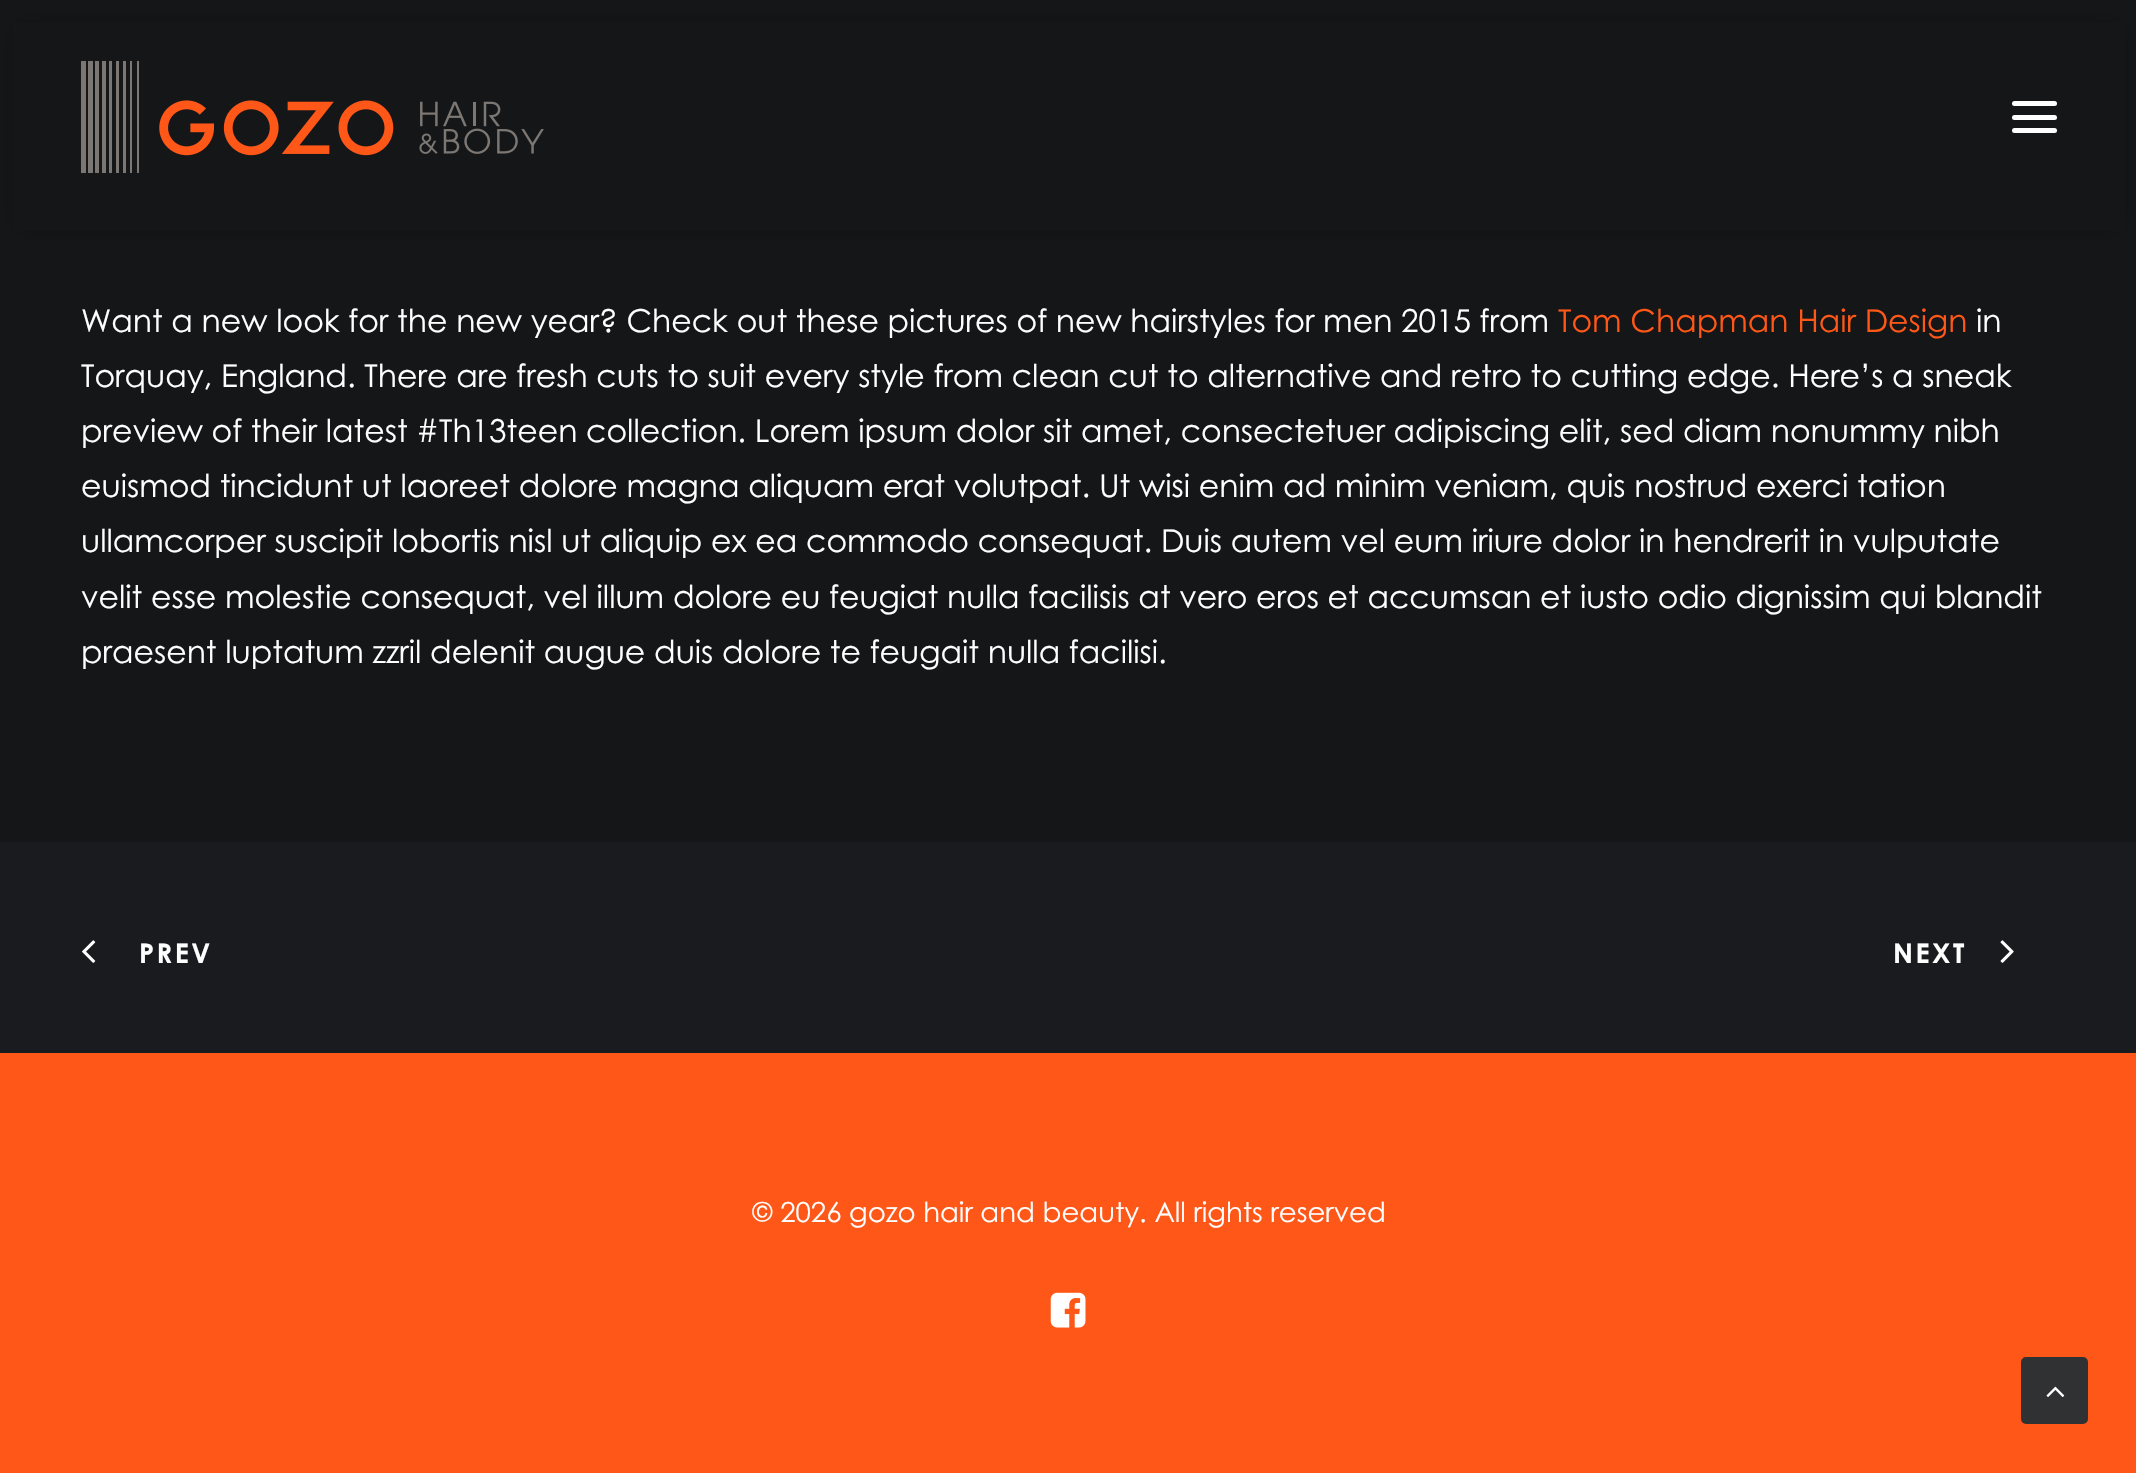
static SkFont makeFont(const char* family, int weight, float size, bool italic = false) {
  SkFontStyle style(weight, SkFontStyle::kNormal_Width,
    italic ? SkFontStyle::kItalic_Slant : SkFontStyle::kUpright_Slant);
  SkFont result(fontMgr->matchFamilyStyle(family, style), size);
  result.setSubpixel(true);
  return result;
}

static void text(SkCanvas* c, const char* s, float x, float y, const SkFont& font, SkColor color) {
  SkPaint ink(SkColor4f::FromColor(color));
  ink.setAntiAlias(true);
  c->drawString(s, x, y, font, ink);
}

static void spacedText(SkCanvas* c, const char* s, float x, float y, const SkFont& font, const SkPaint& ink, float letter, float word) {
  std::vector<SkGlyphID> glyphs(font.countText(s, strlen(s), SkTextEncoding::kUTF8));
  std::vector<float> xs(glyphs.size());
  font.textToGlyphs(s, strlen(s), SkTextEncoding::kUTF8, glyphs);
  font.getXPos(glyphs, xs, x);
  float extra = 0;
  for (size_t i = 0; i < glyphs.size(); i++) {
    xs[i] += extra;
    extra += letter + word * (glyphs[i] == font.unicharToGlyph(' '));
  }
  c->drawTextBlob(SkTextBlob::MakeFromPosHGlyphs(glyphs, xs, y, font), 0, 0, ink);
}

static void box(SkCanvas* c, float l, float t, float r, float b, SkColor color) {
  SkPaint ink(SkColor4f::FromColor(color));
  ink.setAntiAlias(true);
  c->drawRect(SkRect::MakeLTRB(l, t, r, b), ink);
}

static void roundBox(SkCanvas* c, float l, float t, float r, float b, float radius, SkColor color) {
  SkPaint ink(SkColor4f::FromColor(color));
  ink.setAntiAlias(true);
  c->drawRoundRect(SkRect::MakeLTRB(l, t, r, b), radius, radius, ink);
}

static void picture(SkCanvas* c, const char* path, float l, float t, float r, float b) {
  auto image = SkImages::DeferredFromEncodedData(SkData::MakeFromFileName(path));
  c->drawImageRect(image, SkRect::MakeLTRB(l, t, r, b), SkSamplingOptions());
}

void draw(SkCanvas* c) {
  SkPaint paint;
  paint.setAntiAlias(true);
  c->clear(0xff141618);
  paint.setColor(0x99000000);
  paint.setMaskFilter(SkMaskFilter::MakeBlur(kNormal_SkBlurStyle, 11));
  c->drawRect(SkRect::MakeLTRB(23, 32, 2115, 221), paint);
  paint.setMaskFilter(nullptr);
  box(c, 13, 22, 2125, 231, 0xff141618);
  picture(c, "img_01.png", 81, 61, 544, 173);
  roundBox(c, 2012, 115, 2057, 120, 2.5f, 0xffffffff);
  roundBox(c, 2012, 101, 2057, 106, 2.5f, 0xffffffff);
  roundBox(c, 2012, 128, 2057, 133, 2.5f, 0xffffffff);
  SkFont face1 = makeFont("Century Gothic", 400, 31.5f);
  text(c, "Want a new look for the new year? Check out these pictures of new hairstyles for men 2015 from", 81, 332, face1, 0xffffffff);
  text(c, "Tom Chapman Hair Design", 1558, 332, face1, 0xfffe5717);
  text(c, "in", 1976, 332, face1, 0xffffffff);
  text(c, "Torquay, England. There are fresh cuts to suit every style from clean cut to alternative and retro to cutting edge. Here’s a sneak", 81, 387, face1, 0xffffffff);
  text(c, "preview of their latest #Th13teen collection. Lorem ipsum dolor sit amet, consectetuer adipiscing elit, sed diam nonummy nibh", 81, 442, face1, 0xffffffff);
  text(c, "euismod tincidunt ut laoreet dolore magna aliquam erat volutpat. Ut wisi enim ad minim veniam, quis nostrud exerci tation", 81, 497, face1, 0xffffffff);
  text(c, "ullamcorper suscipit lobortis nisl ut aliquip ex ea commodo consequat. Duis autem vel eum iriure dolor in hendrerit in vulputate", 81, 552, face1, 0xffffffff);
  text(c, "velit esse molestie consequat, vel illum dolore eu feugiat nulla facilisis at vero eros et accumsan et iusto odio dignissim qui blandit", 81, 608, face1, 0xffffffff);
  text(c, "praesent luptatum zzril delenit augue duis dolore te feugait nulla facilisi.", 81, 663, face1, 0xffffffff);
  box(c, 0, 842, 2136, 1053, 0xff191b1e);
  picture(c, "img_02.png", 82, 940, 96, 963);
  SkFont face2 = makeFont("Century Gothic", 700, 27);
  paint.setColor(0xffffffff);
  spacedText(c, "PREV", 139, 963, face2, paint, 2.5f, 0);
  spacedText(c, "NEXT", 1893, 963, face2, paint, 2.5f, 0);
  picture(c, "img_03.png", 2000, 940, 2014, 963);
  box(c, 0, 1053, 2136, 1473, 0xfffe5717);
  SkFont face3 = makeFont("Century Gothic", 400, 27.6f);
  text(c, "© 2026 gozo hair and beauty. All rights reserved", 752, 1222, face3, 0xffffffff);
  picture(c, "img_04.png", 1050, 1292, 1086, 1328);
  paint.setColor(0xff303133);
  c->drawRoundRect(SkRect::MakeLTRB(2022, 1358, 2087, 1423), 4, 4, paint);
  paint.setStyle(SkPaint::kStroke_Style);
  paint.setStrokeWidth(2);
  c->drawRoundRect(SkRect::MakeLTRB(2022, 1358, 2087, 1423), 4, 4, paint);
  picture(c, "img_05.png", 2046, 1386, 2065, 1397);
}
